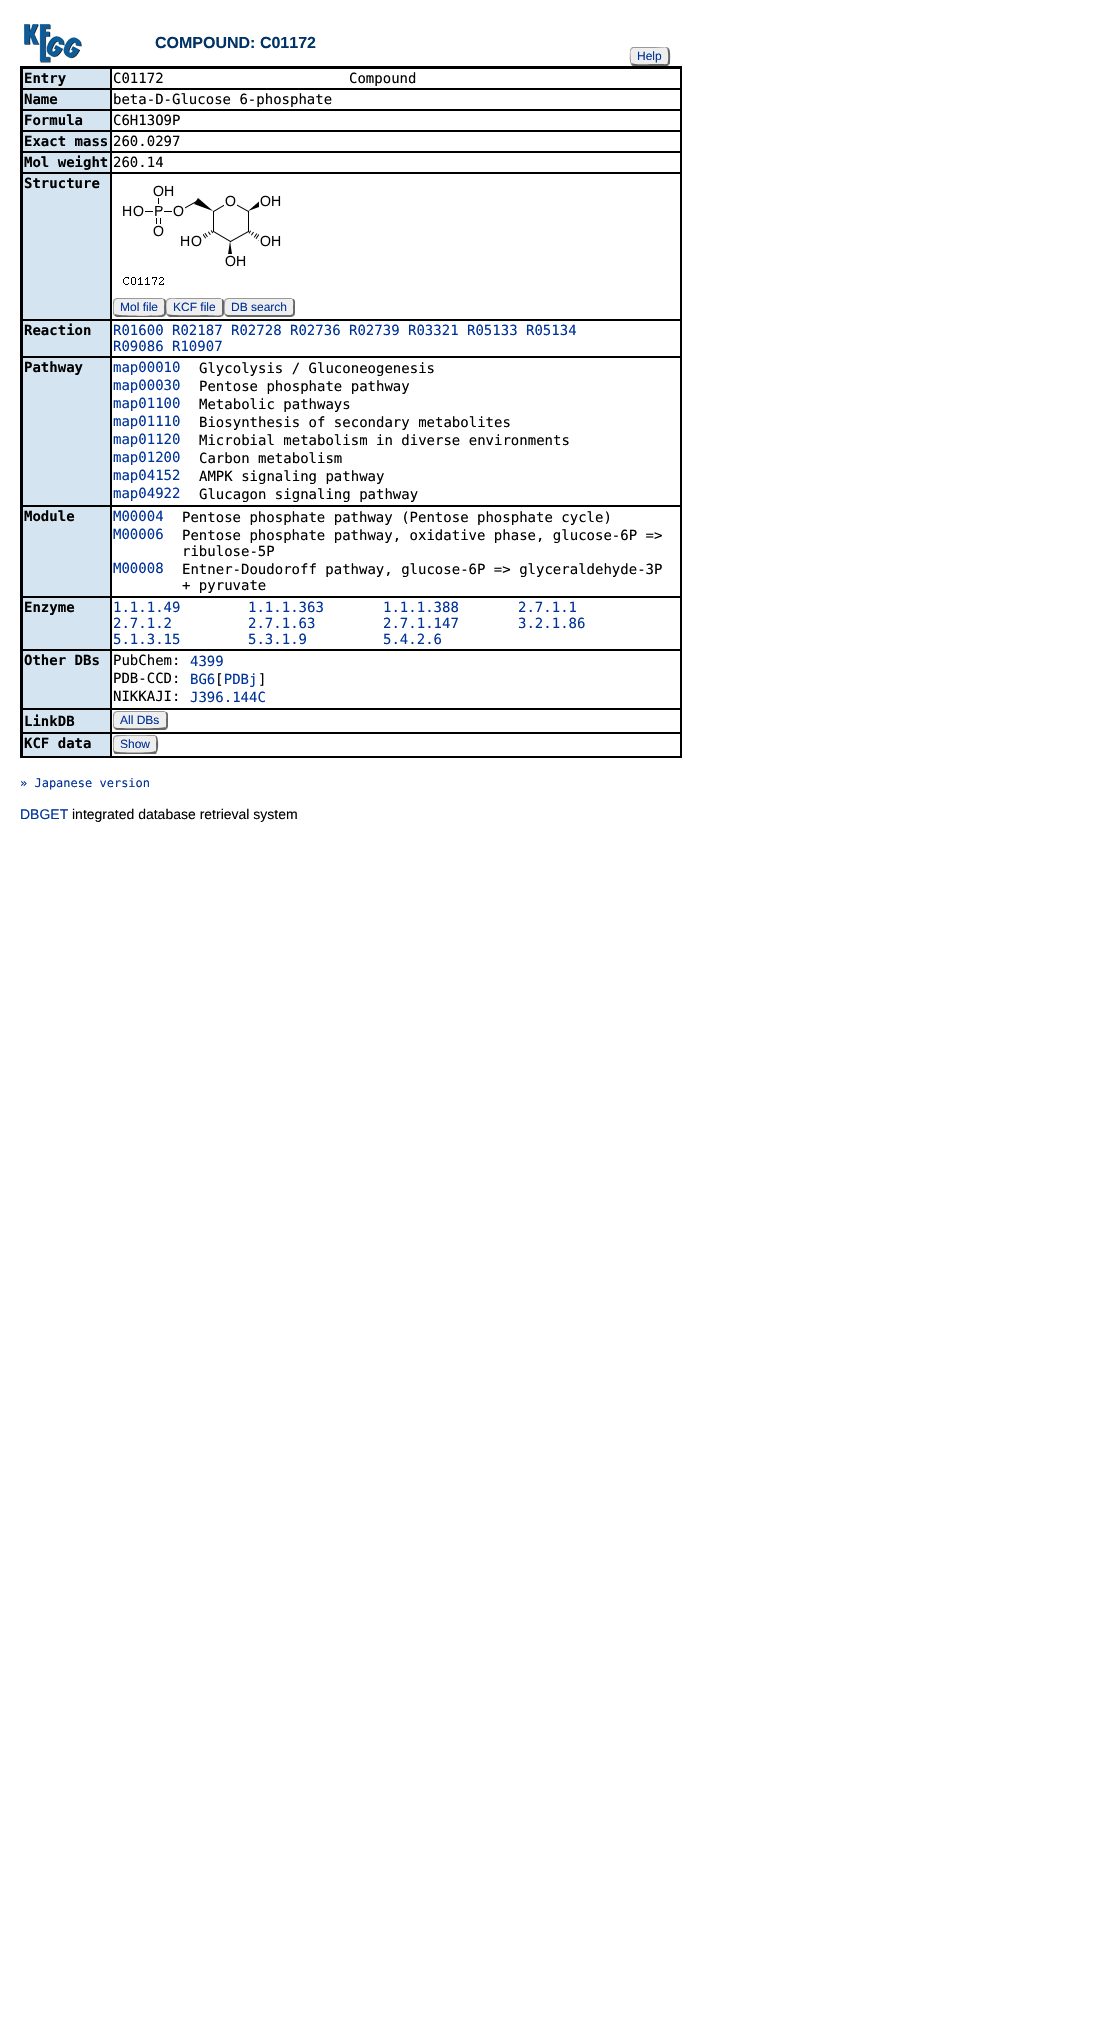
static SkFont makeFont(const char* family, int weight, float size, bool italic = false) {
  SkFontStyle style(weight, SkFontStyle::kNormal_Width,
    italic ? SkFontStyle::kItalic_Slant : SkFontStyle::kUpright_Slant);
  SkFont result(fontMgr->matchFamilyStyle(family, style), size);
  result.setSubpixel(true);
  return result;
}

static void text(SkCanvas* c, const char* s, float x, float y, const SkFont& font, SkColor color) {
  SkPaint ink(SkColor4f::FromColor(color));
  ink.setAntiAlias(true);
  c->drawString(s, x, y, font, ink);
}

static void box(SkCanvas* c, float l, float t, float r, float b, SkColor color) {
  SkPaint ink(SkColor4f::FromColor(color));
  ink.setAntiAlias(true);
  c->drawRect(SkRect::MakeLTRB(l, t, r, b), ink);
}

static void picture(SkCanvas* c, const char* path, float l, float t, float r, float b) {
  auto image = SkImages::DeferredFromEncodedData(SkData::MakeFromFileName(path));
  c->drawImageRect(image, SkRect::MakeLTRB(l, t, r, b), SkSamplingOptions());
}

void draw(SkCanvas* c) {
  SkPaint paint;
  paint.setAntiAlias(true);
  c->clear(0xffffffff);
  picture(c, "img_01.png", 24, 24, 82, 63);
  SkFont face1 = makeFont("Liberation Sans", 700, 16);
  text(c, "COMPOUND: C01172", 155, 48, face1, 0xff003366);
  paint.setColor(0xffeeeeee);
  c->drawPath(SkPathBuilder().moveTo(634, 48).lineTo(666, 48).cubicTo(667, 48, 668, 49.5f, 668, 51).lineTo(668, 62).cubicTo(668, 63, 667, 64, 666, 64).lineTo(634, 64).cubicTo(632.5f, 64, 631, 63, 631, 62).lineTo(631, 51).cubicTo(631, 49.5f, 632.5f, 48, 634, 48).close().detach(), paint);
  paint.setColor(0xff999999);
  c->drawPath(SkPathBuilder().moveTo(634, 47).cubicTo(632.5f, 47, 631.5f, 47.5f, 631, 48).lineTo(632, 49).lineTo(633, 48).lineTo(655, 48).lineTo(665, 47.5f).cubicTo(665.5f, 47.5f, 666.5f, 48, 667, 48.5f).lineTo(668.5f, 48).lineTo(667, 47).close().detach(), paint);
  paint.setColor(0xff666666);
  c->drawPath(SkPathBuilder().moveTo(670, 63).lineTo(669, 65).lineTo(667.5f, 63.5f).cubicTo(668.5f, 61.5f, 668.5f, 50, 667, 48.5f).lineTo(668.5f, 48).cubicTo(671, 50.5f, 670, 59.5f, 670, 63).close().detach(), paint);
  c->drawPath(SkPathBuilder().moveTo(633, 66).cubicTo(632, 65.5f, 631.5f, 65, 631, 64).lineTo(631.5f, 63).cubicTo(634, 65, 648, 64, 652, 64).lineTo(662.5f, 64).cubicTo(663.5f, 64, 666.5f, 64.5f, 667.5f, 63.5f).lineTo(669, 65).cubicTo(668.5f, 65.5f, 667.5f, 66, 666, 66).close().detach(), paint);
  paint.setColor(0xff999999);
  c->drawPath(SkPathBuilder().moveTo(630, 50).lineTo(631, 48).lineTo(632, 49).cubicTo(631, 49.5f, 631, 50.5f, 630.5f, 51.5f).lineTo(631, 62).lineTo(631.5f, 63).lineTo(631, 64).cubicTo(629, 61, 630, 54, 630, 50).close().detach(), paint);
  SkFont face2 = makeFont("Liberation Sans", 400, 12);
  text(c, "Help", 637, 60, face2, 0xff003399);
  box(c, 20, 66, 682, 758, 0xff000000);
  box(c, 23, 69, 110, 88, 0xffd4e4f0);
  SkFont face3 = makeFont("DejaVu Sans Mono", 700, 14);
  text(c, "Entry", 24, 83, face3, 0xff000000);
  box(c, 112, 69, 680, 88, 0xffffffff);
  SkFont face4 = makeFont("DejaVu Sans Mono", 400, 14);
  text(c, "C01172                      Compound", 113, 83, face4, 0xff000000);
  box(c, 23, 90, 110, 109, 0xffd4e4f0);
  text(c, "Name", 24, 104, face3, 0xff000000);
  box(c, 112, 90, 680, 109, 0xffffffff);
  text(c, "beta-D-Glucose 6-phosphate", 113, 104, face4, 0xff000000);
  box(c, 23, 111, 110, 130, 0xffd4e4f0);
  text(c, "Formula", 24, 125, face3, 0xff000000);
  box(c, 112, 111, 680, 130, 0xffffffff);
  text(c, "C6H13O9P", 113, 125, face4, 0xff000000);
  box(c, 23, 132, 110, 151, 0xffd4e4f0);
  text(c, "Exact mass", 24, 146, face3, 0xff000000);
  box(c, 112, 132, 680, 151, 0xffffffff);
  text(c, "260.0297", 113, 146, face4, 0xff000000);
  box(c, 23, 153, 110, 172, 0xffd4e4f0);
  text(c, "Mol weight", 24, 167, face3, 0xff000000);
  box(c, 112, 153, 680, 172, 0xffffffff);
  text(c, "260.14", 113, 167, face4, 0xff000000);
  box(c, 23, 174, 110, 319, 0xffd4e4f0);
  text(c, "Structure", 24, 188, face3, 0xff000000);
  box(c, 112, 174, 680, 319, 0xffffffff);
  picture(c, "img_02.png", 123, 185, 281, 285);
  paint.setColor(0xffeeeeee);
  c->drawPath(SkPathBuilder().moveTo(117, 299).lineTo(162, 299).cubicTo(163, 299, 164, 300, 164, 302).lineTo(164, 313).cubicTo(164, 314, 163, 315, 162, 315).lineTo(117, 315).cubicTo(115, 315, 114, 314, 114, 313).lineTo(114, 302).cubicTo(114, 300, 115, 299, 117, 299).close().detach(), paint);
  paint.setColor(0xff999999);
  c->drawPath(SkPathBuilder().moveTo(117, 298).lineTo(114, 299).lineTo(115, 300).lineTo(117, 299).lineTo(162, 299).lineTo(163, 299).lineTo(164, 299).lineTo(162, 298).close().detach(), paint);
  paint.setColor(0xff666666);
  c->drawPath(SkPathBuilder().moveTo(166, 313).lineTo(166, 302).cubicTo(166, 301, 165.5f, 299.5f, 164.5f, 299).lineTo(163, 299.5f).cubicTo(165, 301, 164, 305.5f, 164, 307.5f).cubicTo(164, 309, 164.5f, 313, 163.5f, 314.5f).lineTo(165, 316).cubicTo(165.5f, 315, 166, 314, 166, 313).close().detach(), paint);
  c->drawPath(SkPathBuilder().moveTo(117, 317).lineTo(162, 317).cubicTo(163, 317, 164, 316, 165, 316).lineTo(163, 314).lineTo(162, 315).cubicTo(158, 316, 116, 316, 115, 314).lineTo(114, 315).cubicTo(115, 316, 116, 317, 117, 317).close().detach(), paint);
  paint.setColor(0xff999999);
  c->drawPath(SkPathBuilder().moveTo(113, 302).lineTo(113, 313).cubicTo(113, 314, 113.5f, 314.5f, 114, 315.5f).lineTo(114.5f, 314).cubicTo(113.5f, 313, 113.5f, 301, 115, 300).lineTo(114, 299).cubicTo(113.5f, 300, 113, 301, 113, 302).close().detach(), paint);
  text(c, "Mol file", 120, 311, face2, 0xff003399);
  paint.setColor(0xffeeeeee);
  c->drawPath(SkPathBuilder().moveTo(170, 299).lineTo(221, 299).cubicTo(223, 300, 222, 304, 222, 306).cubicTo(222, 317, 224, 315, 212, 315).lineTo(178, 315).cubicTo(174, 315, 167, 316, 167, 313).cubicTo(167, 310, 165, 299, 170, 299).close().detach(), paint);
  paint.setColor(0xff999999);
  c->drawPath(SkPathBuilder().moveTo(170, 298).lineTo(167, 299).lineTo(168, 300).cubicTo(170, 298, 177, 299, 178, 299).lineTo(221, 299).lineTo(222, 299).lineTo(220, 298).close().detach(), paint);
  paint.setColor(0xff666666);
  c->drawPath(SkPathBuilder().moveTo(224, 313).lineTo(224, 302).cubicTo(224, 301, 223.5f, 299.5f, 222.5f, 299).lineTo(221.5f, 299.5f).lineTo(222, 301).lineTo(222, 311).cubicTo(222, 312, 222.5f, 313.5f, 221.5f, 314.5f).lineTo(223, 316).cubicTo(223.5f, 315, 224, 314, 224, 313).close().detach(), paint);
  c->drawPath(SkPathBuilder().moveTo(170, 317).lineTo(220, 317).lineTo(223, 316).lineTo(222, 315).cubicTo(220, 316, 207, 315, 206, 315).cubicTo(203, 315, 169, 316, 167, 314).lineTo(167, 315).cubicTo(168, 316, 169, 317, 170, 317).close().detach(), paint);
  paint.setColor(0xff999999);
  c->drawPath(SkPathBuilder().moveTo(166, 302).lineTo(166, 313).cubicTo(166, 314, 166.5f, 314.5f, 167, 315.5f).lineTo(167.5f, 314).cubicTo(166.5f, 313, 166.5f, 304, 166.5f, 303.5f).cubicTo(167, 302, 167, 301, 168, 300).lineTo(167, 299).cubicTo(166.5f, 300, 166, 301, 166, 302).close().detach(), paint);
  text(c, "KCF file", 173, 311, face2, 0xff003399);
  paint.setColor(0xffeeeeee);
  c->drawPath(SkPathBuilder().moveTo(228, 299).lineTo(291, 299).cubicTo(292, 299, 293, 300, 293, 302).lineTo(293, 313).cubicTo(293, 314, 292, 315, 291, 315).lineTo(228, 315).cubicTo(226, 315, 225, 314, 225, 313).lineTo(225, 302).cubicTo(225, 300, 226, 299, 228, 299).close().detach(), paint);
  paint.setColor(0xff999999);
  c->drawPath(SkPathBuilder().moveTo(228, 298).lineTo(225, 299).lineTo(226, 300).lineTo(228, 299).lineTo(292, 299).lineTo(293, 299).lineTo(291, 298).close().detach(), paint);
  paint.setColor(0xff666666);
  c->drawPath(SkPathBuilder().moveTo(295, 313).lineTo(295, 302).cubicTo(295, 301, 294.5f, 299.5f, 293.5f, 299).lineTo(292, 299.5f).cubicTo(294, 301, 293, 305.5f, 293, 307.5f).cubicTo(293, 309, 293.5f, 313, 292.5f, 314.5f).lineTo(294, 316).cubicTo(294.5f, 315, 295, 314, 295, 313).close().detach(), paint);
  c->drawPath(SkPathBuilder().moveTo(228, 317).lineTo(291, 317).lineTo(294, 316).lineTo(292, 314).lineTo(291, 315).lineTo(228, 315).lineTo(225, 314).lineTo(225, 315).cubicTo(226, 316, 227, 317, 228, 317).close().detach(), paint);
  paint.setColor(0xff999999);
  c->drawPath(SkPathBuilder().moveTo(224, 302).lineTo(224, 313).cubicTo(224, 314, 224.5f, 314.5f, 225, 315.5f).lineTo(225.5f, 314).cubicTo(224.5f, 313, 224.5f, 301, 226, 300).lineTo(225, 299).cubicTo(224.5f, 300, 224, 301, 224, 302).close().detach(), paint);
  text(c, "DB search", 231, 311, face2, 0xff003399);
  box(c, 23, 321, 110, 356, 0xffd4e4f0);
  text(c, "Reaction", 24, 335, face3, 0xff000000);
  box(c, 112, 321, 680, 356, 0xffffffff);
  text(c, "R01600 R02187 R02728 R02736 R02739 R03321 R05133 R05134", 113, 335, face4, 0xff003399);
  text(c, "R09086 R10907", 113, 351, face4, 0xff003399);
  box(c, 23, 358, 110, 505, 0xffd4e4f0);
  text(c, "Pathway", 24, 372, face3, 0xff000000);
  box(c, 112, 358, 680, 505, 0xffffffff);
  text(c, "map00010", 113, 372, face4, 0xff003399);
  text(c, "Glycolysis / Gluconeogenesis", 199, 373, face4, 0xff000000);
  text(c, "map00030", 113, 390, face4, 0xff003399);
  text(c, "Pentose phosphate pathway", 199, 391, face4, 0xff000000);
  text(c, "map01100", 113, 408, face4, 0xff003399);
  text(c, "Metabolic pathways", 199, 409, face4, 0xff000000);
  text(c, "map01110", 113, 426, face4, 0xff003399);
  text(c, "Biosynthesis of secondary metabolites", 199, 427, face4, 0xff000000);
  text(c, "map01120", 113, 444, face4, 0xff003399);
  text(c, "Microbial metabolism in diverse environments", 199, 445, face4, 0xff000000);
  text(c, "map01200", 113, 462, face4, 0xff003399);
  text(c, "Carbon metabolism", 199, 463, face4, 0xff000000);
  text(c, "map04152", 113, 480, face4, 0xff003399);
  text(c, "AMPK signaling pathway", 199, 481, face4, 0xff000000);
  text(c, "map04922", 113, 498, face4, 0xff003399);
  text(c, "Glucagon signaling pathway", 199, 499, face4, 0xff000000);
  box(c, 23, 507, 110, 596, 0xffd4e4f0);
  text(c, "Module", 24, 521, face3, 0xff000000);
  box(c, 112, 507, 680, 596, 0xffffffff);
  text(c, "M00004", 113, 521, face4, 0xff003399);
  text(c, "Pentose phosphate pathway (Pentose phosphate cycle)", 182, 522, face4, 0xff000000);
  text(c, "M00006", 113, 539, face4, 0xff003399);
  text(c, "Pentose phosphate pathway, oxidative phase, glucose-6P =>", 182, 540, face4, 0xff000000);
  text(c, "ribulose-5P", 182, 556, face4, 0xff000000);
  text(c, "M00008", 113, 573, face4, 0xff003399);
  text(c, "Entner-Doudoroff pathway, glucose-6P => glyceraldehyde-3P", 182, 574, face4, 0xff000000);
  text(c, "+ pyruvate", 182, 590, face4, 0xff000000);
  box(c, 23, 598, 110, 649, 0xffd4e4f0);
  text(c, "Enzyme", 24, 612, face3, 0xff000000);
  box(c, 112, 598, 680, 649, 0xffffffff);
  text(c, "1.1.1.49", 113, 612, face4, 0xff003399);
  text(c, "1.1.1.363", 248, 612, face4, 0xff003399);
  text(c, "1.1.1.388", 383, 612, face4, 0xff003399);
  text(c, "2.7.1.1", 518, 612, face4, 0xff003399);
  text(c, "2.7.1.2", 113, 628, face4, 0xff003399);
  text(c, "2.7.1.63", 248, 628, face4, 0xff003399);
  text(c, "2.7.1.147", 383, 628, face4, 0xff003399);
  text(c, "3.2.1.86", 518, 628, face4, 0xff003399);
  text(c, "5.1.3.15", 113, 644, face4, 0xff003399);
  text(c, "5.3.1.9", 248, 644, face4, 0xff003399);
  text(c, "5.4.2.6", 383, 644, face4, 0xff003399);
  box(c, 23, 651, 110, 708, 0xffd4e4f0);
  text(c, "Other DBs", 24, 665, face3, 0xff000000);
  box(c, 112, 651, 680, 708, 0xffffffff);
  text(c, "PubChem:", 113, 665, face4, 0xff000000);
  text(c, "4399", 190, 666, face4, 0xff003399);
  text(c, "PDB-CCD:", 113, 683, face4, 0xff000000);
  text(c, "BG6 PDBj", 190, 684, face4, 0xff003399);
  text(c, "[", 215, 684, face4, 0xff000000);
  text(c, "]", 258, 684, face4, 0xff000000);
  text(c, "NIKKAJI:", 113, 701, face4, 0xff000000);
  text(c, "J396.144C", 190, 702, face4, 0xff003399);
  box(c, 23, 710, 110, 732, 0xffd4e4f0);
  text(c, "LinkDB", 24, 726, face3, 0xff000000);
  box(c, 112, 710, 680, 732, 0xffffffff);
  paint.setColor(0xffeeeeee);
  c->drawPath(SkPathBuilder().moveTo(117, 712).lineTo(164, 712).cubicTo(165, 712, 166, 713, 166, 715).lineTo(166, 726).cubicTo(166, 727, 165, 728, 164, 728).lineTo(117, 728).cubicTo(115, 728, 114, 727, 114, 726).lineTo(114, 715).cubicTo(114, 713, 115, 712, 117, 712).close().detach(), paint);
  paint.setColor(0xff999999);
  c->drawPath(SkPathBuilder().moveTo(117, 711).lineTo(114, 712).lineTo(115, 713).lineTo(117, 712).cubicTo(121, 712, 164, 712, 165, 712).lineTo(166, 712).lineTo(164, 711).close().detach(), paint);
  paint.setColor(0xff666666);
  c->drawPath(SkPathBuilder().moveTo(168, 726).lineTo(168, 715).cubicTo(168, 714, 167.5f, 712.5f, 166.5f, 712).lineTo(165, 712.5f).cubicTo(167, 714, 166, 718.5f, 166, 720.5f).cubicTo(166, 722, 166.5f, 726, 165.5f, 727.5f).lineTo(167, 729).cubicTo(167.5f, 728, 168, 727, 168, 726).close().detach(), paint);
  c->drawPath(SkPathBuilder().moveTo(117, 730).lineTo(165, 730).lineTo(167, 729).lineTo(165, 727).cubicTo(164, 729, 121, 728, 117, 728).lineTo(114, 727).lineTo(114, 728).cubicTo(115, 729, 116, 730, 117, 730).close().detach(), paint);
  paint.setColor(0xff999999);
  c->drawPath(SkPathBuilder().moveTo(113, 715).lineTo(113, 726).cubicTo(113, 727, 113.5f, 727.5f, 114, 728.5f).lineTo(114.5f, 727).cubicTo(113.5f, 726, 113.5f, 714, 115, 713).lineTo(114, 712).cubicTo(113.5f, 713, 113, 714, 113, 715).close().detach(), paint);
  text(c, "All DBs", 120, 724, face2, 0xff003399);
  box(c, 23, 734, 110, 756, 0xffd4e4f0);
  text(c, "KCF data", 24, 748, face3, 0xff000000);
  box(c, 112, 734, 680, 756, 0xffffffff);
  paint.setColor(0xffeeeeee);
  c->drawPath(SkPathBuilder().moveTo(117, 736).lineTo(154, 736).cubicTo(155, 736, 156, 737, 156, 739).lineTo(156, 750).cubicTo(156, 751, 155, 752, 154, 752).lineTo(117, 752).cubicTo(115, 752, 114, 751, 114, 750).lineTo(114, 739).cubicTo(114, 737, 115, 736, 117, 736).close().detach(), paint);
  paint.setColor(0xff999999);
  c->drawPath(SkPathBuilder().moveTo(117, 735).lineTo(114, 736).lineTo(115, 737).cubicTo(116, 735, 154, 736, 155, 736).lineTo(156, 736).lineTo(155, 735).close().detach(), paint);
  paint.setColor(0xff666666);
  c->drawPath(SkPathBuilder().moveTo(156.5f, 736).cubicTo(158.5f, 738, 159, 750.5f, 156.5f, 752.5f).lineTo(155.5f, 751.5f).cubicTo(156.5f, 750, 156, 746, 156, 744.5f).cubicTo(156, 742.5f, 157, 738, 155, 736.5f).close().detach(), paint);
  c->drawPath(SkPathBuilder().moveTo(115, 754).lineTo(153, 754).cubicTo(155, 754, 156, 754, 157, 753).lineTo(155, 751).cubicTo(154, 753, 116, 753, 114, 751).lineTo(114, 753).close().detach(), paint);
  paint.setColor(0xff999999);
  c->drawPath(SkPathBuilder().moveTo(113, 739).cubicTo(113, 738, 113.5f, 737, 114, 736).lineTo(115, 737).cubicTo(113.5f, 738, 113.5f, 750, 114.5f, 751).lineTo(113.5f, 752.5f).lineTo(113, 750.5f).close().detach(), paint);
  text(c, "Show", 120, 748, face2, 0xff003399);
  SkFont face5 = makeFont("DejaVu Sans Mono", 400, 12);
  text(c, "» Japanese version", 20, 787, face5, 0xff003399);
  SkFont face6 = makeFont("Liberation Sans", 400, 14);
  text(c, "DBGET", 20, 819, face6, 0xff003399);
  text(c, "integrated database retrieval system", 72, 819, face6, 0xff000000);
}
